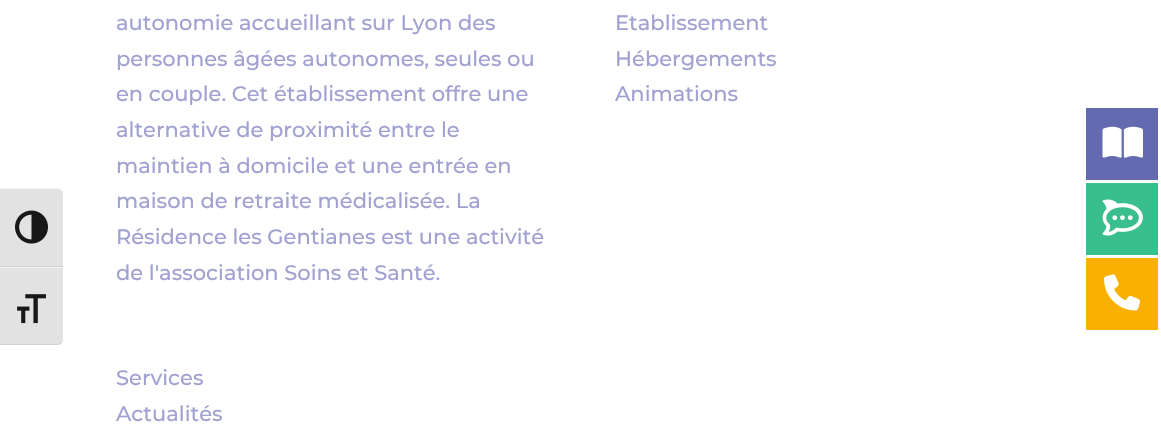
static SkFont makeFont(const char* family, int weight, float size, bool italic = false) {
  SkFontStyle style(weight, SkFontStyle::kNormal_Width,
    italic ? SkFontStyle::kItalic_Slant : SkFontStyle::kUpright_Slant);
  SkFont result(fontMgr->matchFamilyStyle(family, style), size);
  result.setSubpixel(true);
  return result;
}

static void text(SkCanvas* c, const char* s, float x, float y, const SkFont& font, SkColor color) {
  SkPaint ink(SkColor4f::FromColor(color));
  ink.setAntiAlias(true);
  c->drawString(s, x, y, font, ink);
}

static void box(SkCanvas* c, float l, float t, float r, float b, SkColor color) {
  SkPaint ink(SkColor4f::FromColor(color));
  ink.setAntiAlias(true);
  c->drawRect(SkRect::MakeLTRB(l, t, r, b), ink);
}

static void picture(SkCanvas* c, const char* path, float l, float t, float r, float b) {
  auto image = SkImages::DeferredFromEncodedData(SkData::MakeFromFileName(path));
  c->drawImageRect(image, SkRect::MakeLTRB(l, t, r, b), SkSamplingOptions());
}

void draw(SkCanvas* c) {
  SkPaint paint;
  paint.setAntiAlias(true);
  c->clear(0xffffffff);
  paint.setColor(0xffe2e2e2);
  c->drawPath(SkPathBuilder().moveTo(0, 188).lineTo(57, 188).cubicTo(60.5f, 188, 63, 190.5f, 63, 194).lineTo(63, 267).lineTo(0, 267).close().detach(), paint);
  paint.setColor(0xfff5f5f5);
  c->drawPath(SkPathBuilder().moveTo(0, 189).lineTo(57, 189).cubicTo(60, 189, 63, 191, 63, 194).cubicTo(63, 190, 60, 188, 57, 188).lineTo(0, 188).close().detach(), paint);
  box(c, 0, 266, 63, 267, 0xffd2d2d2);
  picture(c, "img_01.png", 15, 210, 48, 244);
  paint.setColor(0xffe2e2e2);
  c->drawPath(SkPathBuilder().moveTo(0, 267).lineTo(63, 267).lineTo(63, 339).cubicTo(63, 342.5f, 60.5f, 345, 57, 345).lineTo(0, 345).close().detach(), paint);
  box(c, 0, 267, 63, 268, 0xfff5f5f5);
  paint.setColor(0xffd2d2d2);
  c->drawPath(SkPathBuilder().moveTo(0, 344).lineTo(0, 345).lineTo(57, 345).cubicTo(60, 345, 63, 342, 63, 339).cubicTo(63, 341, 60, 344, 57, 344).close().detach(), paint);
  picture(c, "img_02.png", 17, 294, 46, 324);
  SkFont face1 = makeFont("Montserrat", 100, 21);
  text(c, "autonomie accueillant sur Lyon des", 116, 30, face1, 0xffa1a2d1);
  text(c, "personnes âgées autonomes, seules ou", 116, 66, face1, 0xffa1a2d1);
  text(c, "en couple. Cet établissement offre une", 116, 101, face1, 0xffa1a2d1);
  text(c, "alternative de proximité entre le", 116, 137, face1, 0xffa1a2d1);
  text(c, "maintien à domicile et une entrée en", 116, 173, face1, 0xffa1a2d1);
  text(c, "maison de retraite médicalisée. La", 116, 208, face1, 0xffa1a2d1);
  text(c, "Résidence les Gentianes est une activité", 116, 244, face1, 0xffa1a2d1);
  text(c, "de l'association Soins et Santé.", 116, 280, face1, 0xffa1a2d1);
  text(c, "Etablissement", 615, 30, face1, 0xffa1a2d1);
  text(c, "Hébergements", 615, 66, face1, 0xffa1a2d1);
  text(c, "Animations", 615, 101, face1, 0xffa1a2d1);
  text(c, "Services", 116, 385, face1, 0xffa1a2d1);
  text(c, "Actualités", 116, 421, face1, 0xffa1a2d1);
  box(c, 1086, 108, 1158, 180, 0xff636ab0);
  picture(c, "img_03.png", 1102, 126, 1143, 158);
  box(c, 1086, 183, 1158, 255, 0xff39bf8e);
  picture(c, "img_04.png", 1102, 199, 1143, 236);
  box(c, 1086, 258, 1158, 330, 0xfff9b000);
  picture(c, "img_05.png", 1104, 274, 1140, 311);
}
